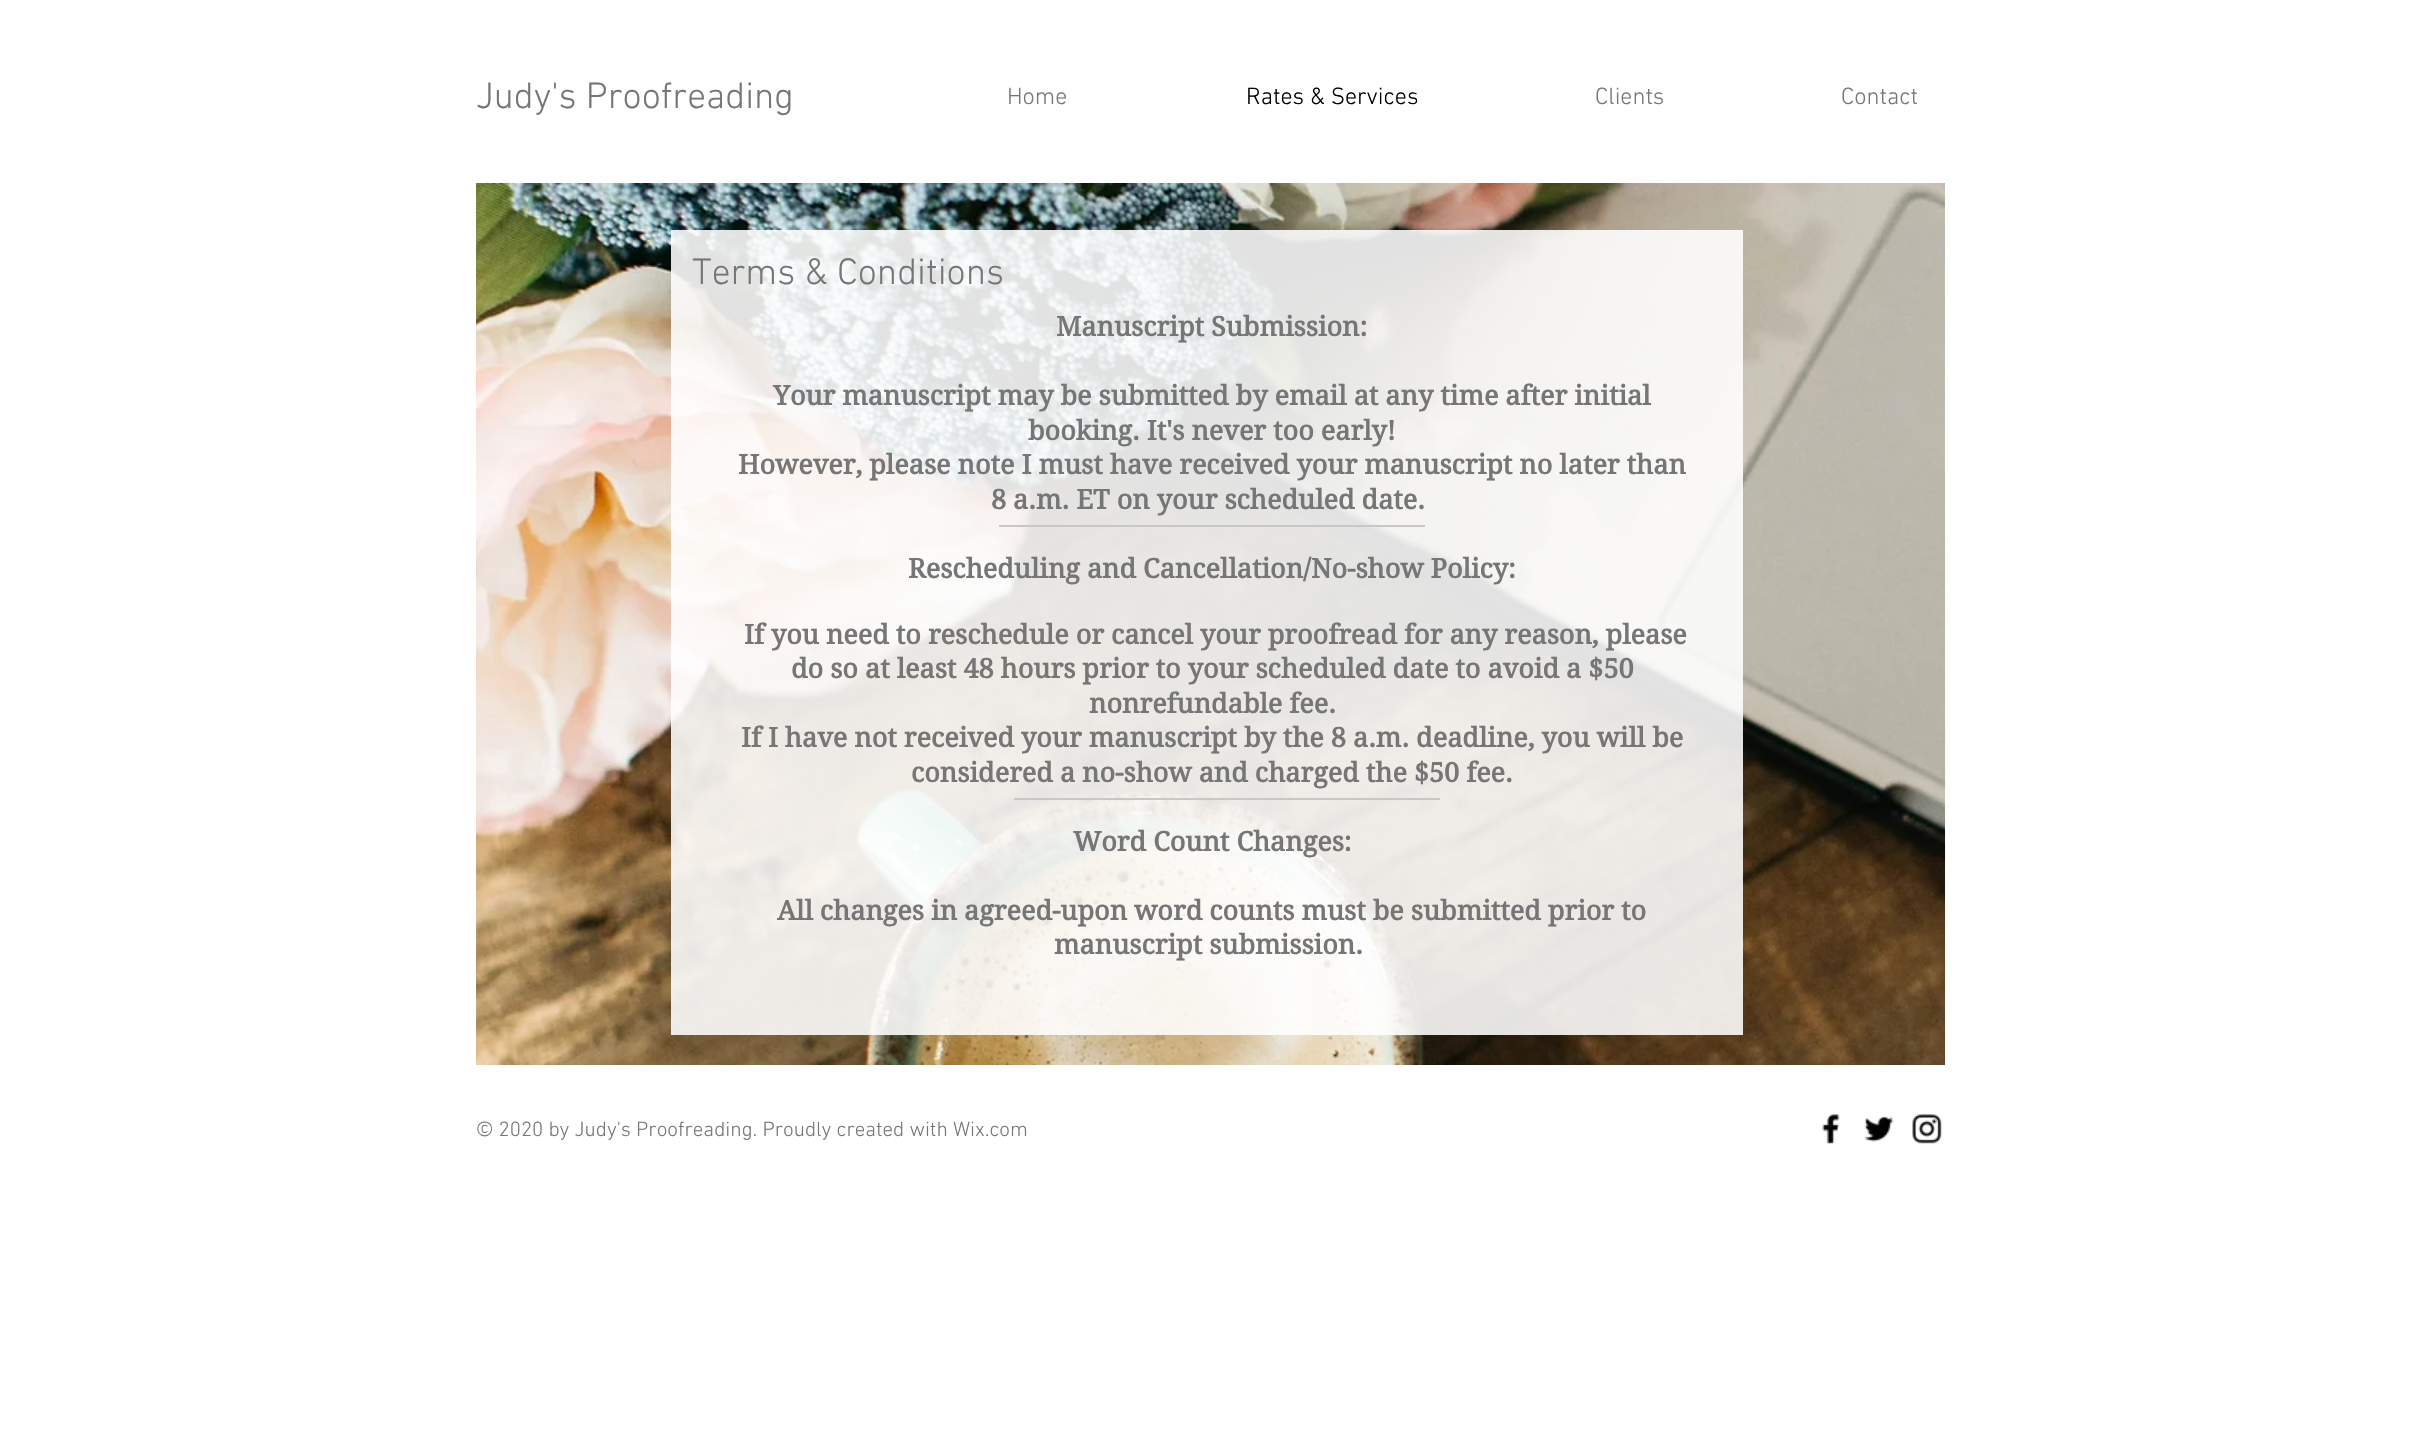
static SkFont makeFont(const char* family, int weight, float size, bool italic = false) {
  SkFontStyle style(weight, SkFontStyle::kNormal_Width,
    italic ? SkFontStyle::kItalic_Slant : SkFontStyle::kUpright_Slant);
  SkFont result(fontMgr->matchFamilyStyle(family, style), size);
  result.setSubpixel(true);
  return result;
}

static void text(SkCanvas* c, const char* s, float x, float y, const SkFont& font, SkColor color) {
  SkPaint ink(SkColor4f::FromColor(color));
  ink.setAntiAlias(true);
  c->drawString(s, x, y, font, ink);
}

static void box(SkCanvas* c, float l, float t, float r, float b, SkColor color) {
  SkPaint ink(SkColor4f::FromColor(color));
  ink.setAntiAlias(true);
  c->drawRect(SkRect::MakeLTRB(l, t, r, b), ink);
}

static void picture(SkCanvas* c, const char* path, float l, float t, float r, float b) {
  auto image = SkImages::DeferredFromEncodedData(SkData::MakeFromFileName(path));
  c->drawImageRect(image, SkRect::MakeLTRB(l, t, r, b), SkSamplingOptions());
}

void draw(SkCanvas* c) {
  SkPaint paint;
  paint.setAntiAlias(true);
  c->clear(0xffffffff);
  SkFont face1 = makeFont("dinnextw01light", 300, 37.5f);
  text(c, "Judy's Proofreading", 476, 108, face1, 0xff767676);
  SkFont face2 = makeFont("dinnextw01light", 300, 24);
  text(c, "Home", 1007, 104, face2, 0xff767676);
  text(c, "Rates & Services", 1246, 104, face2, 0xff000000);
  text(c, "Clients", 1595, 104, face2, 0xff767676);
  text(c, "Contact", 1841, 104, face2, 0xff767676);
  picture(c, "img_01.png", 476, 183, 1946, 1065);
  box(c, 671, 230, 1743, 1035, 0xe0ffffff);
  text(c, "Terms & Conditions", 692, 284, face1, 0xff767676);
  SkFont face3 = makeFont("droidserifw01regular", 700, 27);
  text(c, "Manuscript Submission:", 1056, 336, face3, 0xff767676);
  text(c, "Your manuscript may be submitted by email at any time after initial", 773, 405, face3, 0xff767676);
  text(c, "booking. It's never too early!", 1028, 440, face3, 0xff767676);
  text(c, "However, please note I must have received your manuscript no later than", 738, 474, face3, 0xff767676);
  text(c, "8 a.m. ET on your scheduled date.", 991, 509, face3, 0xff767676);
  text(c, "Rescheduling and Cancellation/No-show Policy:", 908, 578, face3, 0xff767676);
  text(c, "If you need to reschedule or cancel your proofread for any reason, please", 744, 644, face3, 0xff767676);
  text(c, "do so at least 48 hours prior to your scheduled date to avoid a $50", 791, 678, face3, 0xff767676);
  text(c, "nonrefundable fee.", 1089, 713, face3, 0xff767676);
  text(c, "If I have not received your manuscript by the 8 a.m. deadline, you will be", 741, 747, face3, 0xff767676);
  text(c, "considered a no-show and charged the $50 fee.", 911, 782, face3, 0xff767676);
  text(c, "Word Count Changes:", 1073, 851, face3, 0xff767676);
  text(c, "All changes in agreed-upon word counts must be submitted prior to", 777, 920, face3, 0xff767676);
  text(c, "manuscript submission.", 1054, 954, face3, 0xff767676);
  box(c, 999, 525, 1425, 527, 0xffc7c7c7);
  box(c, 1014, 798, 1440, 800, 0xffc7c7c7);
  SkFont face4 = makeFont("dinnextw01light", 300, 21);
  text(c, "© 2020 by Judy's Proofreading. Proudly created with Wix.com", 476, 1136, face4, 0xff767676);
  picture(c, "img_02.png", 1822, 1114, 1840, 1144);
  picture(c, "img_03.png", 1864, 1116, 1894, 1142);
  picture(c, "img_04.png", 1912, 1114, 1942, 1144);
}
